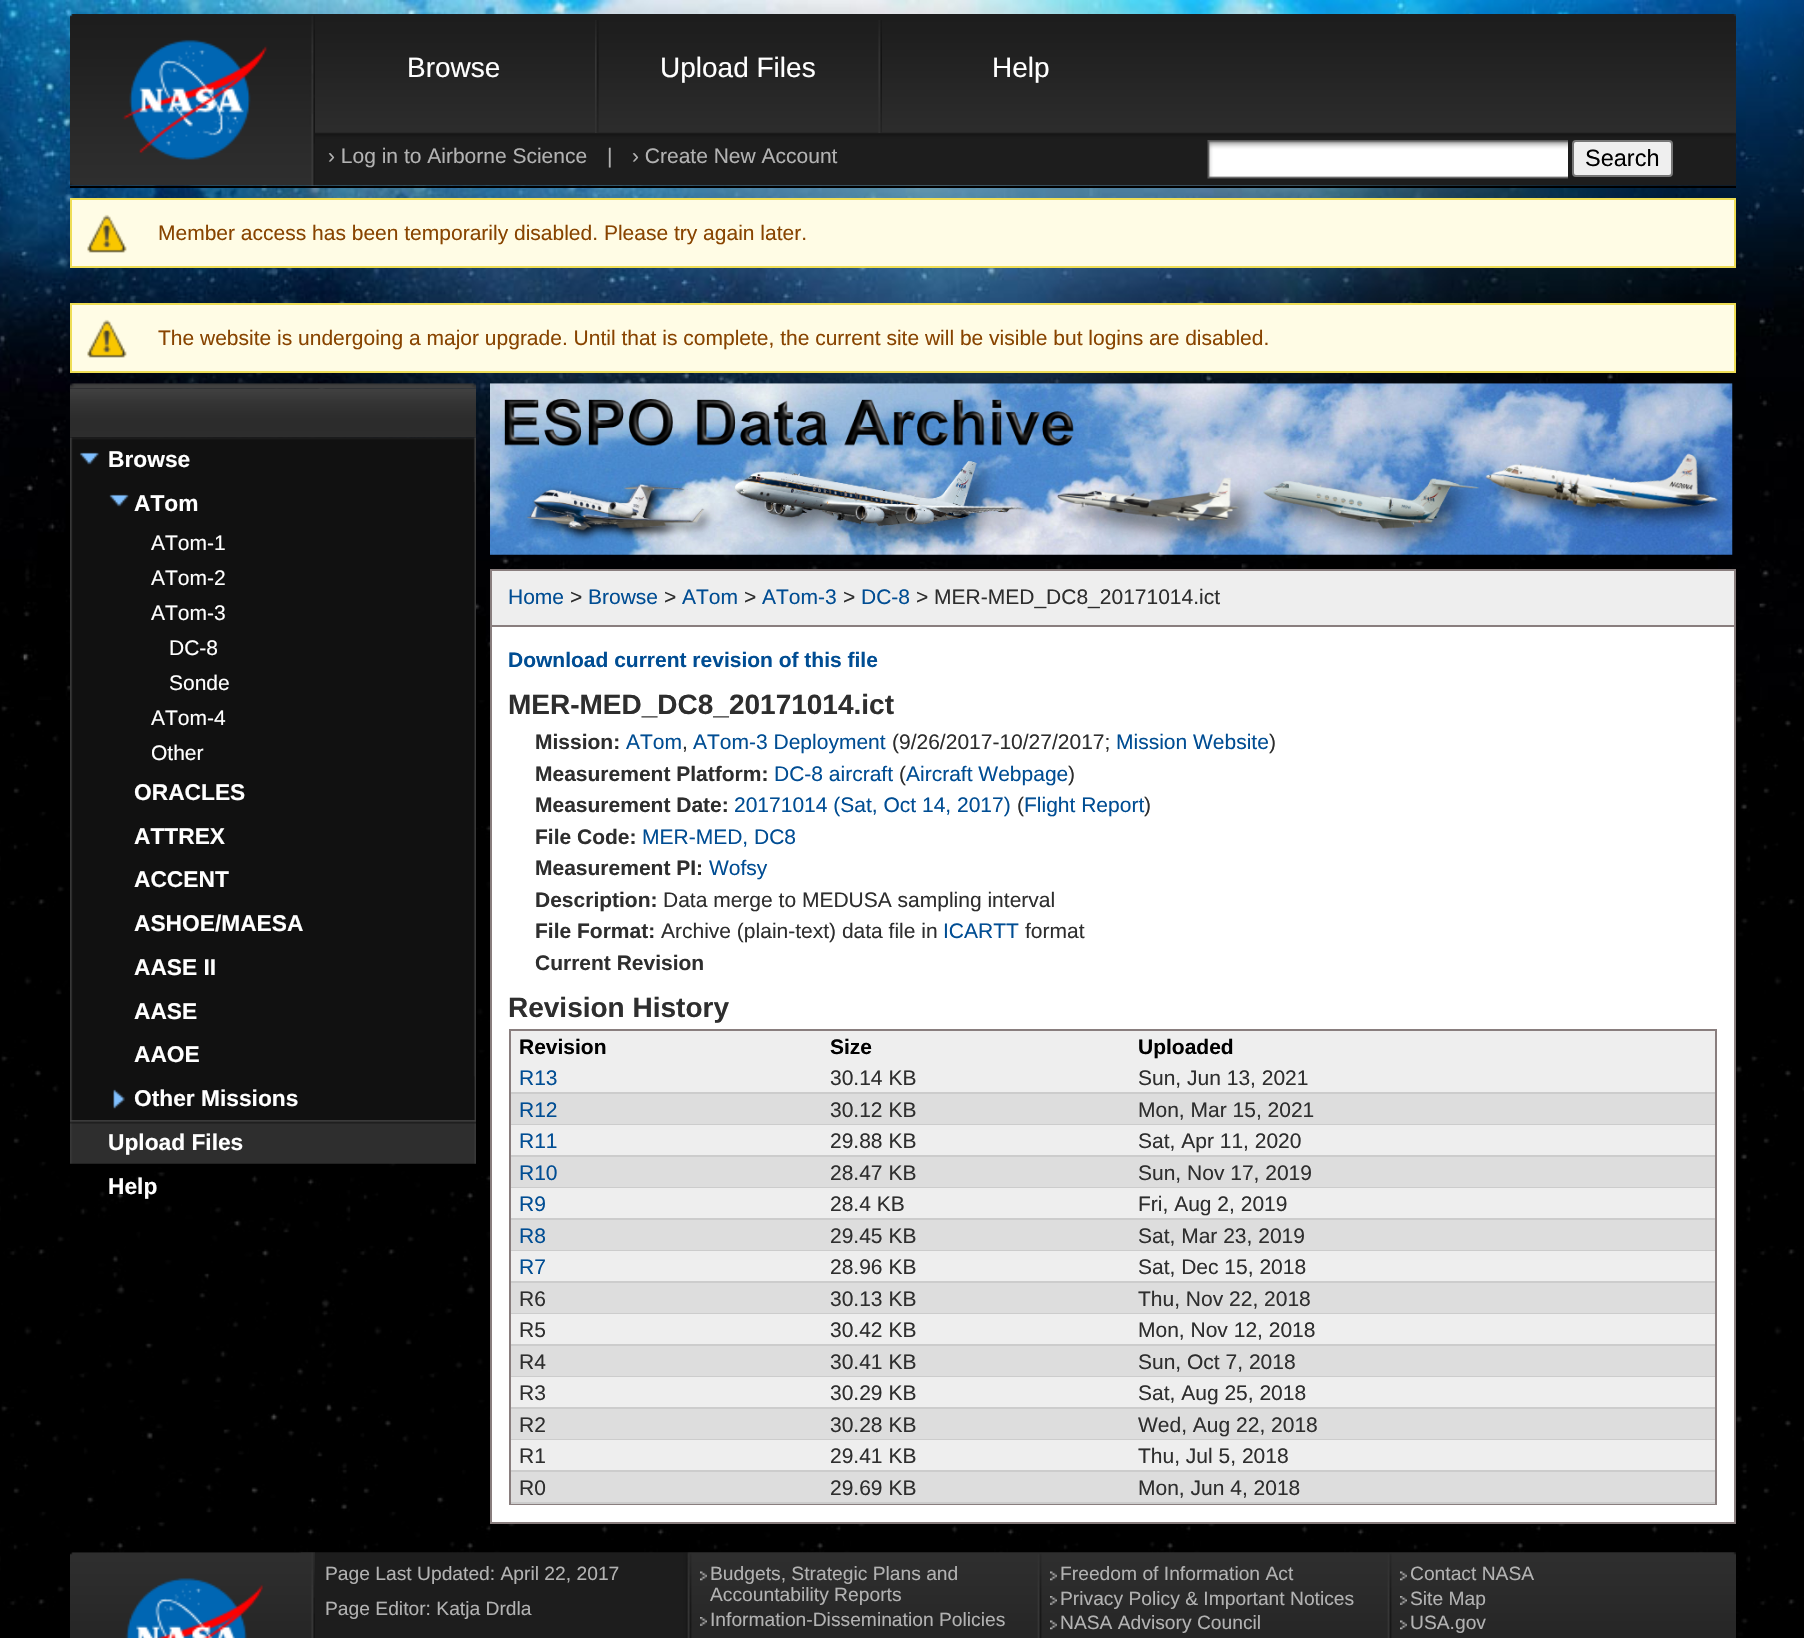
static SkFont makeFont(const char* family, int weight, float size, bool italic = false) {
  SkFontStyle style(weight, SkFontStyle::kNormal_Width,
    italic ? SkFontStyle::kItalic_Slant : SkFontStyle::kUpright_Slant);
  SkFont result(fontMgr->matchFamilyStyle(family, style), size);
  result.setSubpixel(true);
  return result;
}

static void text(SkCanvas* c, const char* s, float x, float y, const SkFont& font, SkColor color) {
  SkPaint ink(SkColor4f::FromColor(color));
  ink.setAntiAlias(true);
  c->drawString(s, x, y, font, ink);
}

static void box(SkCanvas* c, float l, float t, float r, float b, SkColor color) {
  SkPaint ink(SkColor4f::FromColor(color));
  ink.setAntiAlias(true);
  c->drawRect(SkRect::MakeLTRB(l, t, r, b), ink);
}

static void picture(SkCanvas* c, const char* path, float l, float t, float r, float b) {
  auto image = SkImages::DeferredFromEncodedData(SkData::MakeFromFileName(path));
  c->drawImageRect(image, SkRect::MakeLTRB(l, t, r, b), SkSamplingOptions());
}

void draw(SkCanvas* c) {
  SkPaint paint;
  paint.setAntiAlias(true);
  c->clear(0xffffffff);
  picture(c, "img_01.png", 0, 700, 1804, 1638);
  picture(c, "img_02.png", 0, 0, 1804, 700);
  picture(c, "img_03.png", 315, 14, 1736, 186);
  box(c, 70, 186, 1736, 188, 0xff000000);
  picture(c, "img_04.png", 70, 14, 315, 186);
  picture(c, "img_05.png", 595, 20, 599, 133);
  SkFont face1 = makeFont("Liberation Sans", 400, 28);
  text(c, "Browse", 407, 77, face1, 0xffffffff);
  picture(c, "img_06.png", 878, 20, 882, 133);
  text(c, "Upload Files", 660, 77, face1, 0xffffffff);
  text(c, "Help", 992, 77, face1, 0xffffffff);
  SkFont face2 = makeFont("Liberation Sans", 400, 21);
  text(c, "› Log in to Airborne Science", 328, 163, face2, 0xffb2b2b2);
  text(c, "|", 607, 163, face2, 0xffb2b2b2);
  text(c, "› Create New Account", 632, 163, face2, 0xffb2b2b2);
  picture(c, "img_07.png", 1207, 140, 1568, 179);
  paint.setColor(0xffefefef);
  c->drawRoundRect(SkRect::MakeLTRB(1573, 141, 1672, 176), 3, 3, paint);
  paint.setStyle(SkPaint::kStroke_Style);
  paint.setStrokeWidth(2);
  paint.setColor(0xff767676);
  c->drawRoundRect(SkRect::MakeLTRB(1573, 141, 1672, 176), 3, 3, paint);
  SkFont face3 = makeFont("Liberation Sans", 400, 23.5f);
  text(c, "Search", 1585, 166, face3, 0xff000000);
  box(c, 72, 200, 1734, 266, 0xfffffce5);
  picture(c, "img_08.png", 87, 214, 127, 253);
  paint.setColor(0xffeedd55);
  c->drawRect(SkRect::MakeLTRB(71, 199, 1735, 267), paint);
  text(c, "Member access has been temporarily disabled. Please try again later.", 158, 240, face2, 0xff884400);
  box(c, 72, 305, 1734, 371, 0xfffffce5);
  picture(c, "img_09.png", 87, 319, 127, 358);
  c->drawRect(SkRect::MakeLTRB(71, 304, 1735, 372), paint);
  text(c, "The website is undergoing a major upgrade. Until that is complete, the current site will be visible but logins are disabled.", 158, 345, face2, 0xff884400);
  picture(c, "img_10.png", 70, 383, 476, 389);
  picture(c, "img_11.png", 70, 388, 476, 438);
  picture(c, "img_12.png", 70, 437, 476, 1120);
  SkFont face4 = makeFont("Liberation Sans", 700, 22.75f);
  text(c, "Browse", 108, 467, face4, 0xffffffff);
  picture(c, "img_13.png", 109, 482, 475, 770);
  text(c, "ATom", 134, 511, face4, 0xffffffff);
  text(c, "ATom-1", 151, 550, face2, 0xffffffff);
  text(c, "ATom-2", 151, 585, face2, 0xffffffff);
  text(c, "ATom-3", 151, 620, face2, 0xffffffff);
  text(c, "DC-8", 169, 655, face2, 0xffffffff);
  text(c, "Sonde", 169, 690, face2, 0xffffffff);
  text(c, "ATom-4", 151, 725, face2, 0xffffffff);
  text(c, "Other", 151, 760, face2, 0xffffffff);
  text(c, "ORACLES", 134, 800, face4, 0xffffffff);
  text(c, "ATTREX", 134, 844, face4, 0xffffffff);
  text(c, "ACCENT", 134, 887, face4, 0xffffffff);
  text(c, "ASHOE/MAESA", 134, 931, face4, 0xffffffff);
  text(c, "AASE II", 134, 975, face4, 0xffffffff);
  text(c, "AASE", 134, 1019, face4, 0xffffffff);
  text(c, "AAOE", 134, 1062, face4, 0xffffffff);
  picture(c, "img_14.png", 113, 1076, 475, 1120);
  text(c, "Other Missions", 134, 1106, face4, 0xffffffff);
  picture(c, "img_15.png", 70, 1120, 476, 1164);
  text(c, "Upload Files", 108, 1150, face4, 0xffffffff);
  text(c, "Help", 108, 1194, face4, 0xffffffff);
  picture(c, "img_16.png", 490, 383, 1733, 555);
  box(c, 492, 571, 1734, 625, 0xffeeeeee);
  box(c, 490, 569, 1736, 571, 0xff897e7e);
  box(c, 1734, 569, 1736, 625, 0xff897e7e);
  box(c, 490, 569, 492, 625, 0xff897e7e);
  text(c, "Home", 508, 604, face2, 0xff004d93);
  text(c, ">", 570, 604, face2, 0xff2e2e2e);
  text(c, "Browse", 588, 604, face2, 0xff004d93);
  text(c, ">", 664, 604, face2, 0xff2e2e2e);
  text(c, "ATom", 682, 604, face2, 0xff004d93);
  text(c, ">", 744, 604, face2, 0xff2e2e2e);
  text(c, "ATom-3", 762, 604, face2, 0xff004d93);
  text(c, ">", 843, 604, face2, 0xff2e2e2e);
  text(c, "DC-8", 861, 604, face2, 0xff004d93);
  text(c, "> MER-MED_DC8_20171014.ict", 916, 604, face2, 0xff2e2e2e);
  paint.setStyle(SkPaint::kFill_Style);
  paint.setColor(0xffffffff);
  c->drawRect(SkRect::MakeLTRB(491, 626, 1735, 1523), paint);
  paint.setStyle(SkPaint::kStroke_Style);
  paint.setColor(0xff897e7e);
  c->drawRect(SkRect::MakeLTRB(491, 626, 1735, 1523), paint);
  SkFont face5 = makeFont("Liberation Sans", 700, 21);
  text(c, "Download current revision of this file", 508, 667, face5, 0xff004d93);
  SkFont face6 = makeFont("Liberation Sans", 700, 28);
  text(c, "MER-MED_DC8_20171014.ict", 508, 714, face6, 0xff2e2e2e);
  text(c, "Mission:", 535, 749, face5, 0xff2e2e2e);
  text(c, "ATom", 626, 749, face2, 0xff004d93);
  text(c, ",", 682, 749, face2, 0xff2e2e2e);
  text(c, "ATom-3 Deployment", 693, 749, face2, 0xff004d93);
  text(c, "(9/26/2017-10/27/2017;", 892, 749, face2, 0xff2e2e2e);
  text(c, "Mission Website", 1116, 749, face2, 0xff004d93);
  text(c, ")", 1269, 749, face2, 0xff2e2e2e);
  text(c, "Measurement Platform:", 535, 781, face5, 0xff2e2e2e);
  text(c, "DC-8 aircraft", 774, 781, face2, 0xff004d93);
  text(c, "(", 899, 781, face2, 0xff2e2e2e);
  text(c, "Aircraft Webpage", 906, 781, face2, 0xff004d93);
  text(c, ")", 1068, 781, face2, 0xff2e2e2e);
  text(c, "Measurement Date:", 535, 812, face5, 0xff2e2e2e);
  text(c, "20171014 (Sat, Oct 14, 2017)", 734, 812, face2, 0xff004d93);
  text(c, "(", 1017, 812, face2, 0xff2e2e2e);
  text(c, "Flight Report", 1024, 812, face2, 0xff004d93);
  text(c, ")", 1144, 812, face2, 0xff2e2e2e);
  text(c, "File Code:", 535, 844, face5, 0xff2e2e2e);
  text(c, "MER-MED, DC8", 642, 844, face2, 0xff004d93);
  text(c, "Measurement PI:", 535, 875, face5, 0xff2e2e2e);
  text(c, "Wofsy", 709, 875, face2, 0xff004d93);
  text(c, "Description:", 535, 907, face5, 0xff2e2e2e);
  text(c, "Data merge to MEDUSA sampling interval", 663, 907, face2, 0xff2e2e2e);
  text(c, "File Format:", 535, 938, face5, 0xff2e2e2e);
  text(c, "Archive (plain-text) data file in", 661, 938, face2, 0xff2e2e2e);
  text(c, "ICARTT", 943, 938, face2, 0xff004d93);
  text(c, "format", 1025, 938, face2, 0xff2e2e2e);
  text(c, "Current Revision", 535, 970, face5, 0xff2e2e2e);
  text(c, "Revision History", 508, 1017, face6, 0xff2e2e2e);
  box(c, 511, 1031, 1715, 1092, 0xffeeeeee);
  c->drawRect(SkRect::MakeLTRB(510, 1030, 1716, 1504), paint);
  text(c, "Revision", 519, 1054, face5, 0xff000000);
  text(c, "Size", 830, 1054, face5, 0xff000000);
  text(c, "Uploaded", 1138, 1054, face5, 0xff000000);
  box(c, 511, 1092, 1715, 1094, 0xffcccccc);
  text(c, "R13", 519, 1085, face2, 0xff004d93);
  text(c, "30.14 KB", 830, 1085, face2, 0xff2e2e2e);
  text(c, "Sun, Jun 13, 2021", 1138, 1085, face2, 0xff2e2e2e);
  box(c, 511, 1094, 1715, 1124, 0xffdddddd);
  box(c, 511, 1124, 1715, 1125, 0xffcccccc);
  text(c, "R12", 519, 1117, face2, 0xff004d93);
  text(c, "30.12 KB", 830, 1117, face2, 0xff2e2e2e);
  text(c, "Mon, Mar 15, 2021", 1138, 1117, face2, 0xff2e2e2e);
  box(c, 511, 1125, 1715, 1155, 0xffeeeeee);
  box(c, 511, 1155, 1715, 1157, 0xffcccccc);
  text(c, "R11", 519, 1148, face2, 0xff004d93);
  text(c, "29.88 KB", 830, 1148, face2, 0xff2e2e2e);
  text(c, "Sat, Apr 11, 2020", 1138, 1148, face2, 0xff2e2e2e);
  box(c, 511, 1157, 1715, 1187, 0xffdddddd);
  box(c, 511, 1187, 1715, 1188, 0xffcccccc);
  text(c, "R10", 519, 1180, face2, 0xff004d93);
  text(c, "28.47 KB", 830, 1180, face2, 0xff2e2e2e);
  text(c, "Sun, Nov 17, 2019", 1138, 1180, face2, 0xff2e2e2e);
  box(c, 511, 1188, 1715, 1218, 0xffeeeeee);
  box(c, 511, 1218, 1715, 1220, 0xffcccccc);
  text(c, "R9", 519, 1211, face2, 0xff004d93);
  text(c, "28.4 KB", 830, 1211, face2, 0xff2e2e2e);
  text(c, "Fri, Aug 2, 2019", 1138, 1211, face2, 0xff2e2e2e);
  box(c, 511, 1220, 1715, 1250, 0xffdddddd);
  box(c, 511, 1250, 1715, 1251, 0xffcccccc);
  text(c, "R8", 519, 1243, face2, 0xff004d93);
  text(c, "29.45 KB", 830, 1243, face2, 0xff2e2e2e);
  text(c, "Sat, Mar 23, 2019", 1138, 1243, face2, 0xff2e2e2e);
  box(c, 511, 1251, 1715, 1281, 0xffeeeeee);
  box(c, 511, 1281, 1715, 1283, 0xffcccccc);
  text(c, "R7", 519, 1274, face2, 0xff004d93);
  text(c, "28.96 KB", 830, 1274, face2, 0xff2e2e2e);
  text(c, "Sat, Dec 15, 2018", 1138, 1274, face2, 0xff2e2e2e);
  box(c, 511, 1283, 1715, 1313, 0xffdddddd);
  box(c, 511, 1313, 1715, 1314, 0xffcccccc);
  text(c, "R6", 519, 1306, face2, 0xff2e2e2e);
  text(c, "30.13 KB", 830, 1306, face2, 0xff2e2e2e);
  text(c, "Thu, Nov 22, 2018", 1138, 1306, face2, 0xff2e2e2e);
  box(c, 511, 1314, 1715, 1344, 0xffeeeeee);
  box(c, 511, 1344, 1715, 1346, 0xffcccccc);
  text(c, "R5", 519, 1337, face2, 0xff2e2e2e);
  text(c, "30.42 KB", 830, 1337, face2, 0xff2e2e2e);
  text(c, "Mon, Nov 12, 2018", 1138, 1337, face2, 0xff2e2e2e);
  box(c, 511, 1346, 1715, 1376, 0xffdddddd);
  box(c, 511, 1376, 1715, 1377, 0xffcccccc);
  text(c, "R4", 519, 1369, face2, 0xff2e2e2e);
  text(c, "30.41 KB", 830, 1369, face2, 0xff2e2e2e);
  text(c, "Sun, Oct 7, 2018", 1138, 1369, face2, 0xff2e2e2e);
  box(c, 511, 1377, 1715, 1407, 0xffeeeeee);
  box(c, 511, 1407, 1715, 1409, 0xffcccccc);
  text(c, "R3", 519, 1400, face2, 0xff2e2e2e);
  text(c, "30.29 KB", 830, 1400, face2, 0xff2e2e2e);
  text(c, "Sat, Aug 25, 2018", 1138, 1400, face2, 0xff2e2e2e);
  box(c, 511, 1409, 1715, 1439, 0xffdddddd);
  box(c, 511, 1439, 1715, 1440, 0xffcccccc);
  text(c, "R2", 519, 1432, face2, 0xff2e2e2e);
  text(c, "30.28 KB", 830, 1432, face2, 0xff2e2e2e);
  text(c, "Wed, Aug 22, 2018", 1138, 1432, face2, 0xff2e2e2e);
  box(c, 511, 1440, 1715, 1470, 0xffeeeeee);
  box(c, 511, 1470, 1715, 1472, 0xffcccccc);
  text(c, "R1", 519, 1463, face2, 0xff2e2e2e);
  text(c, "29.41 KB", 830, 1463, face2, 0xff2e2e2e);
  text(c, "Thu, Jul 5, 2018", 1138, 1463, face2, 0xff2e2e2e);
  box(c, 511, 1472, 1715, 1502, 0xffdddddd);
  box(c, 511, 1502, 1715, 1504, 0xffcccccc);
  text(c, "R0", 519, 1495, face2, 0xff2e2e2e);
  text(c, "29.69 KB", 830, 1495, face2, 0xff2e2e2e);
  text(c, "Mon, Jun 4, 2018", 1138, 1495, face2, 0xff2e2e2e);
  picture(c, "img_17.png", 301, 1552, 1736, 1638);
  picture(c, "img_18.png", 70, 1552, 315, 1638);
  SkFont face7 = makeFont("Liberation Sans", 400, 19.25f);
  text(c, "Page Last Updated: April 22, 2017", 325, 1580, face7, 0xffb2b2b2);
  text(c, "Page Editor: Katja Drdla", 325, 1615, face7, 0xffb2b2b2);
  picture(c, "img_19.png", 700, 1571, 707, 1581);
  text(c, "Budgets, Strategic Plans and", 710, 1580, face7, 0xffb2b2b2);
  text(c, "Accountability Reports", 710, 1601, face7, 0xffb2b2b2);
  picture(c, "img_20.png", 700, 1617, 707, 1626);
  text(c, "Information-Dissemination Policies", 710, 1626, face7, 0xffb2b2b2);
  picture(c, "img_19.png", 1050, 1571, 1057, 1581);
  text(c, "Freedom of Information Act", 1060, 1580, face7, 0xffb2b2b2);
  picture(c, "img_21.png", 1050, 1596, 1057, 1605);
  text(c, "Privacy Policy & Important Notices", 1060, 1605, face7, 0xffb2b2b2);
  picture(c, "img_22.png", 1050, 1620, 1057, 1630);
  text(c, "NASA Advisory Council", 1060, 1629, face7, 0xffb2b2b2);
  picture(c, "img_19.png", 1400, 1571, 1407, 1581);
  text(c, "Contact NASA", 1410, 1580, face7, 0xffb2b2b2);
  picture(c, "img_21.png", 1400, 1596, 1407, 1605);
  text(c, "Site Map", 1410, 1605, face7, 0xffb2b2b2);
  picture(c, "img_22.png", 1400, 1620, 1407, 1630);
  text(c, "USA.gov", 1410, 1629, face7, 0xffb2b2b2);
}
